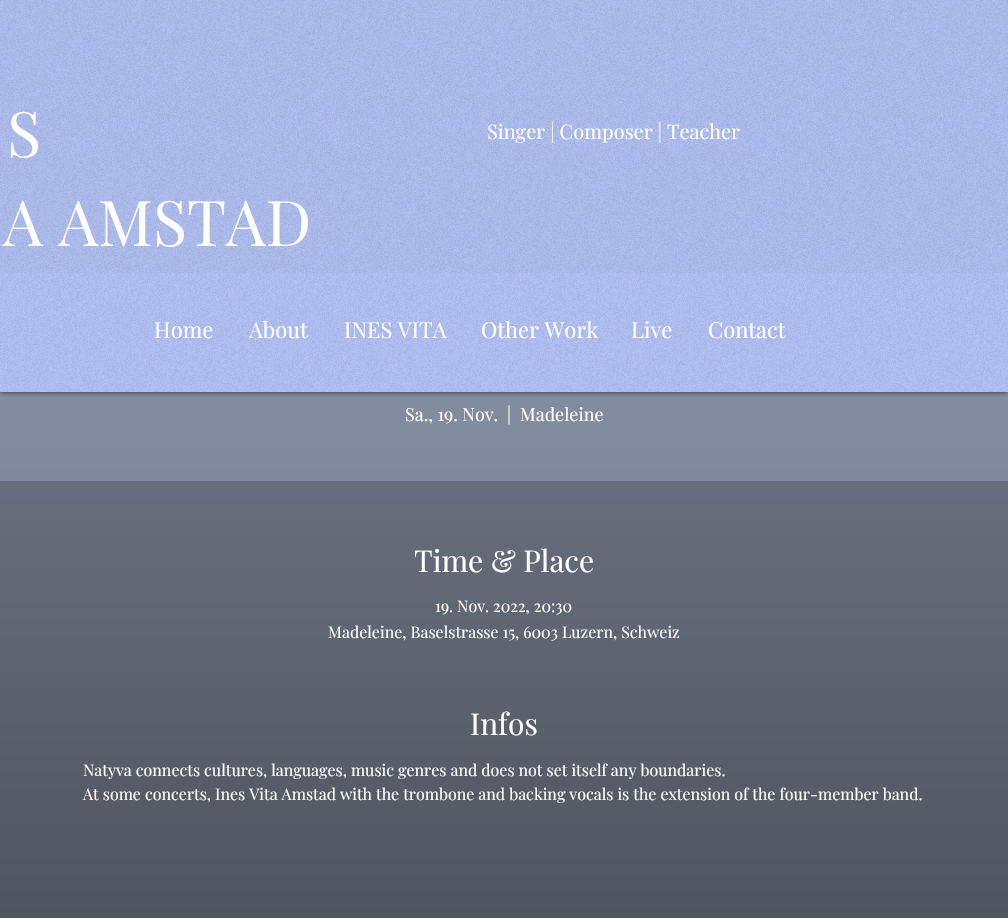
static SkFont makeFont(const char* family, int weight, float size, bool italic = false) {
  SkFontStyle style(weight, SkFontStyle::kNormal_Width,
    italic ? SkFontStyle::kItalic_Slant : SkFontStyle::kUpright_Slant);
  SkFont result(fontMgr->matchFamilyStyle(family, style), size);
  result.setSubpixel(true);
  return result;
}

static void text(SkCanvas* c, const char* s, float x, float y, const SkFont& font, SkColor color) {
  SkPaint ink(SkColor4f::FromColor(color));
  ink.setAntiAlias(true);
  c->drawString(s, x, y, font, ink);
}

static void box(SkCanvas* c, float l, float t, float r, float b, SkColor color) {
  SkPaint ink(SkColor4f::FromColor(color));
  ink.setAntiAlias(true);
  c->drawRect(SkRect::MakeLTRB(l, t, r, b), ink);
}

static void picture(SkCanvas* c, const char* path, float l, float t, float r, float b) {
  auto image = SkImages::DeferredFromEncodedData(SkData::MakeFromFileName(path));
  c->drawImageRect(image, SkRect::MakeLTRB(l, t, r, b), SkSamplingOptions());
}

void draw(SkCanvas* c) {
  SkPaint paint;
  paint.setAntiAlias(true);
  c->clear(0xffaebef0);
  {
    const SkColor colors[] = {0xff3c3e47, 0xff848ca0};
    const float stops[] = {0, 1};
    const SkPoint ends[] = {{504, 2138}, {504, 392}};
    paint.setShader(SkGradientShader::MakeLinear(ends, colors, stops, 2, SkTileMode::kClamp));
    paint.setAlpha(255);
  }
  c->drawRect(SkRect::MakeLTRB(0, 392, 1008, 481), paint);
  box(c, 0, 273, 1008, 392, 0xffb1c1f4);
  c->save();
  c->clipRect(SkRect::MakeLTRB(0, 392, 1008, 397));
  paint.setShader(nullptr);
  paint.setColor(0xb3000000);
  paint.setMaskFilter(SkMaskFilter::MakeBlur(kNormal_SkBlurStyle, 2.5f));
  c->drawRect(SkRect::MakeLTRB(0, 0, 1008, 392), paint);
  paint.setMaskFilter(nullptr);
  c->restore();
  picture(c, "img_01.png", 0, 0, 1008, 392);
  SkFont face1 = makeFont("Playfair Display", 400, 63);
  text(c, "S", 7, 157, face1, 0xffffffff);
  text(c, "A AMSTAD", 3, 246, face1, 0xffffffff);
  SkFont face2 = makeFont("Playfair Display", 400, 20);
  text(c, "Singer | Composer | Teacher", 487, 139, face2, 0xffffffff);
  SkFont face3 = makeFont("Playfair Display", 400, 22);
  text(c, "Home", 154, 338, face3, 0xffffffff);
  text(c, "About", 249, 338, face3, 0xffffffff);
  text(c, "INES VITA", 344, 338, face3, 0xffffffff);
  text(c, "Other Work", 481, 338, face3, 0xffffffff);
  text(c, "Live", 631, 338, face3, 0xffffffff);
  text(c, "Contact", 708, 338, face3, 0xffffffff);
  {
    const SkColor colors[] = {0xff0d0c0c, 0xff6d7383};
    const float stops[] = {0, 1};
    const SkPoint ends[] = {{504, 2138}, {504, 392}};
    paint.setShader(SkGradientShader::MakeLinear(ends, colors, stops, 2, SkTileMode::kClamp));
    paint.setAlpha(255);
  }
  c->drawRect(SkRect::MakeLTRB(0, 481, 1008, 918), paint);
  SkFont face4 = makeFont("Playfair Display", 400, 18);
  text(c, "Sa., 19. Nov.", 405, 421, face4, 0xffffffff);
  text(c, "|", 507, 421, face4, 0xffffffff);
  text(c, "Madeleine", 520, 421, face4, 0xffffffff);
  SkFont face5 = makeFont("Playfair Display", 400, 30);
  text(c, "Time & Place", 414, 572, face5, 0xffffffff);
  SkFont face6 = makeFont("Playfair Display", 400, 16);
  text(c, "19. Nov. 2022, 20:30", 435, 612, face6, 0xffffffff);
  text(c, "Madeleine, Baselstrasse 15, 6003 Luzern, Schweiz", 328, 638, face6, 0xffffffff);
  text(c, "Infos", 470, 735, face5, 0xffffffff);
  text(c, "Natyva connects cultures, languages, music genres and does not set itself any boundaries.", 83, 776, face6, 0xffffffff);
  text(c, "At some concerts, Ines Vita Amstad with the trombone and backing vocals is the extension of the four-member band.", 83, 800, face6, 0xffffffff);
}
